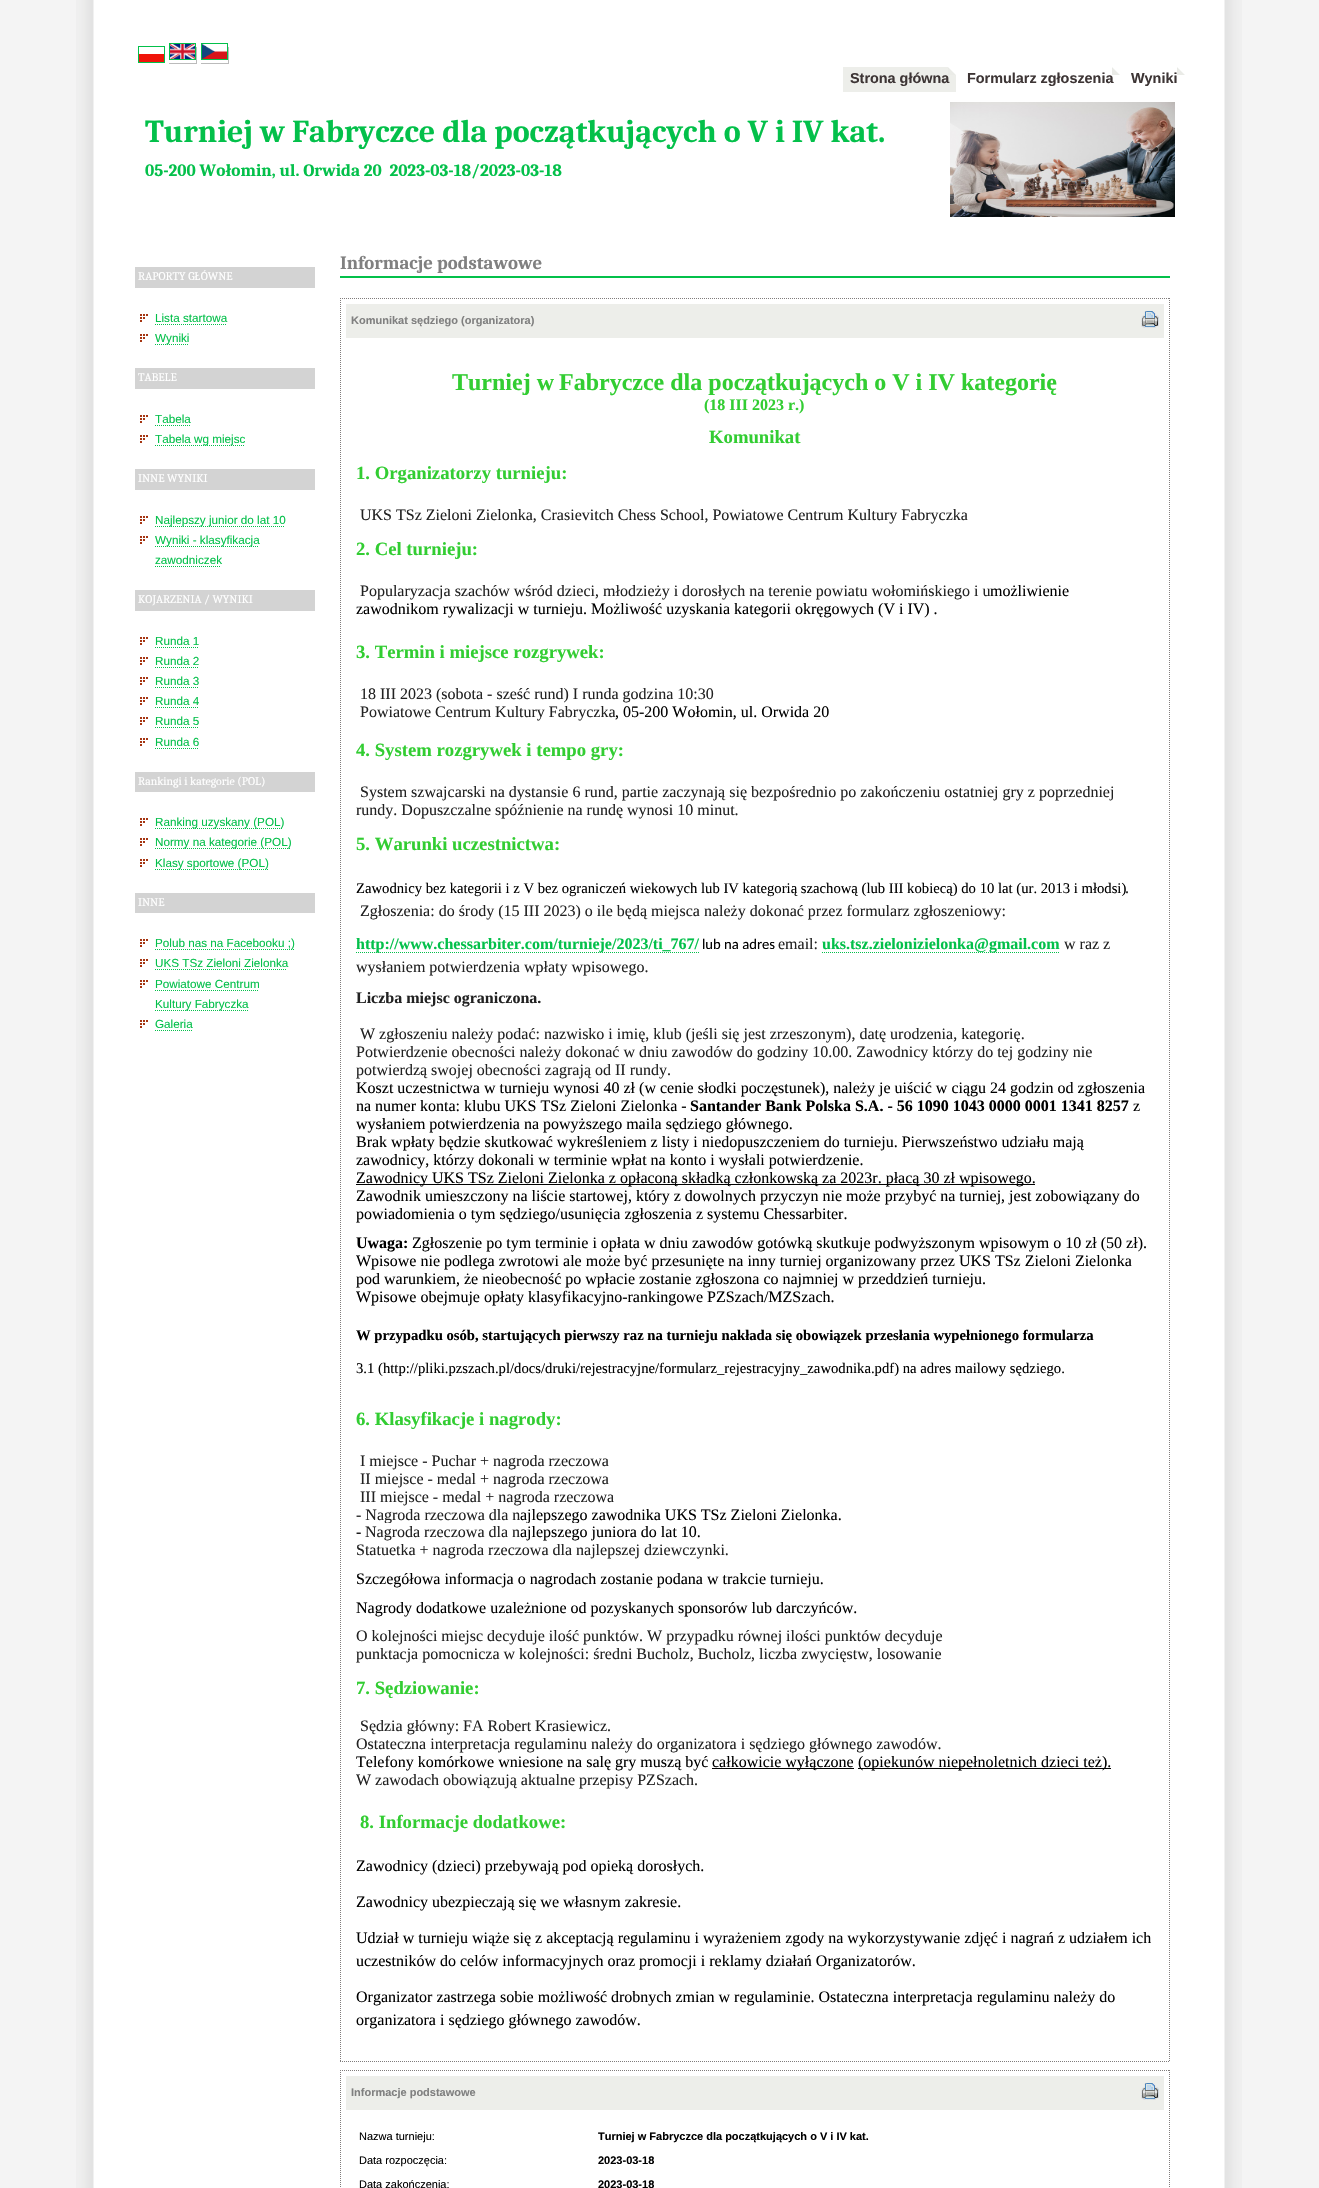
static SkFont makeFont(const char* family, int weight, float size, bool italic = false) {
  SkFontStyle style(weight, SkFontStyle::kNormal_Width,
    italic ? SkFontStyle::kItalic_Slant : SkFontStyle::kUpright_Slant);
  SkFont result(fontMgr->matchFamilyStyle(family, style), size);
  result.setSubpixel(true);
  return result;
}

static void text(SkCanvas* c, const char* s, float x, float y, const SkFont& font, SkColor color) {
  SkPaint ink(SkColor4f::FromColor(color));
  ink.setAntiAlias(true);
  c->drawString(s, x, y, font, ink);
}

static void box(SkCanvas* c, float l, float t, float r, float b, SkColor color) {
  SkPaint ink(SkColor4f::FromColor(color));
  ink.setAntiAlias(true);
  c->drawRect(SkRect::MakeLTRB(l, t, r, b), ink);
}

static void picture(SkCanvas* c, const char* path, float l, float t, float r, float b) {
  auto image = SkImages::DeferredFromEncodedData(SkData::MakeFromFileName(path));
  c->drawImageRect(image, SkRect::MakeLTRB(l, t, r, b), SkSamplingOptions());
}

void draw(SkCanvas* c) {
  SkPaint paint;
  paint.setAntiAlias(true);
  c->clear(0xfff4f4f4);
  picture(c, "img_01.png", 76, 0, 1242, 2188);
  paint.setStyle(SkPaint::kStroke_Style);
  paint.setStrokeWidth(1);
  paint.setColor(0xff03c04a);
  c->drawRect(SkRect::MakeLTRB(138.5f, 46.5f, 164.5f, 62.5f), paint);
  box(c, 139, 54, 164, 62, 0xfff0140a);
  c->drawRect(SkRect::MakeLTRB(169.5f, 43.5f, 195.5f, 59.5f), paint);
  picture(c, "img_02.png", 170, 44, 195, 59);
  box(c, 196, 47, 197, 64, 0xffbbbbbb);
  box(c, 169, 63, 197, 64, 0xffbbbbbb);
  c->drawRect(SkRect::MakeLTRB(201.5f, 43.5f, 227.5f, 59.5f), paint);
  picture(c, "img_03.png", 202, 44, 227, 59);
  box(c, 228, 47, 229, 64, 0xffbbbbbb);
  box(c, 201, 63, 229, 64, 0xffbbbbbb);
  box(c, 843, 67, 956, 92, 0xffedeeea);
  picture(c, "img_04.png", 948, 67, 956, 75);
  picture(c, "img_04.png", 1112, 67, 1120, 75);
  picture(c, "img_04.png", 1177, 67, 1185, 75);
  SkFont face1 = makeFont("Liberation Sans", 700, 14.4f);
  text(c, "Strona główna", 850, 83, face1, 0xff3d3535);
  text(c, "Formularz zgłoszenia", 967, 83, face1, 0xff3d3535);
  text(c, "Wyniki", 1131, 83, face1, 0xff3d3535);
  SkFont face2 = makeFont("Caladea", 700, 32);
  text(c, "Turniej w Fabryczce dla początkujących o V i IV kat.", 145, 142, face2, 0xff03c04a);
  picture(c, "img_05.png", 950, 102, 1175, 217);
  SkFont face3 = makeFont("Caladea", 700, 17.3f);
  text(c, "05-200 Wołomin, ul. Orwida 20  2023-03-18/2023-03-18", 145, 176, face3, 0xff03c04a);
  box(c, 135, 267, 315, 288, 0xffd3d3d3);
  SkFont face4 = makeFont("Caladea", 400, 11.7f);
  text(c, "RAPORTY GŁÓWNE", 138, 280, face4, 0xffffffff);
  picture(c, "img_06.png", 140, 314, 148, 322);
  SkFont face5 = makeFont("Liberation Sans", 400, 11.7f);
  text(c, "Lista startowa", 155, 322, face5, 0xff03c04a);
  paint.setPathEffect(SkDashPathEffect::Make({{1, 1}}, 0));
  c->drawPath(SkPathBuilder().moveTo(155, 324.5f).lineTo(226, 324.5f).detach(), paint);
  paint.setPathEffect(nullptr);
  picture(c, "img_06.png", 140, 334, 148, 342);
  paint.setPathEffect(SkDashPathEffect::Make({{1, 1}}, 0));
  c->drawPath(SkPathBuilder().moveTo(155, 344.5f).lineTo(189, 344.5f).detach(), paint);
  paint.setPathEffect(nullptr);
  text(c, "Wyniki", 155, 342, face5, 0xff03c04a);
  box(c, 135, 368, 315, 389, 0xffd3d3d3);
  text(c, "TABELE", 138, 381, face4, 0xffffffff);
  picture(c, "img_06.png", 140, 415, 148, 423);
  text(c, "Tabela", 155, 423, face5, 0xff03c04a);
  paint.setPathEffect(SkDashPathEffect::Make({{1, 1}}, 0));
  c->drawPath(SkPathBuilder().moveTo(155, 425.5f).lineTo(190, 425.5f).detach(), paint);
  paint.setPathEffect(nullptr);
  picture(c, "img_06.png", 140, 435, 148, 443);
  paint.setPathEffect(SkDashPathEffect::Make({{1, 1}}, 0));
  c->drawPath(SkPathBuilder().moveTo(155, 445.5f).lineTo(245, 445.5f).detach(), paint);
  paint.setPathEffect(nullptr);
  text(c, "Tabela wg miejsc", 155, 443, face5, 0xff03c04a);
  box(c, 135, 469, 315, 490, 0xffd3d3d3);
  text(c, "INNE WYNIKI", 138, 482, face4, 0xffffffff);
  picture(c, "img_06.png", 140, 516, 148, 524);
  paint.setPathEffect(SkDashPathEffect::Make({{1, 1}}, 0));
  c->drawPath(SkPathBuilder().moveTo(155, 526.5f).lineTo(285, 526.5f).detach(), paint);
  paint.setPathEffect(nullptr);
  text(c, "Najlepszy junior do lat 10", 155, 524, face5, 0xff03c04a);
  picture(c, "img_06.png", 140, 536, 148, 544);
  paint.setPathEffect(SkDashPathEffect::Make({{1, 1}}, 0));
  c->drawPath(SkPathBuilder().moveTo(155, 546.5f).lineTo(259, 546.5f).detach(), paint);
  paint.setPathEffect(nullptr);
  text(c, "Wyniki - klasyfikacja", 155, 544, face5, 0xff03c04a);
  text(c, "zawodniczek", 155, 564, face5, 0xff03c04a);
  paint.setPathEffect(SkDashPathEffect::Make({{1, 1}}, 0));
  c->drawPath(SkPathBuilder().moveTo(155, 566.5f).lineTo(221, 566.5f).detach(), paint);
  paint.setPathEffect(nullptr);
  box(c, 135, 590, 315, 611, 0xffd3d3d3);
  text(c, "KOJARZENIA / WYNIKI", 138, 603, face4, 0xffffffff);
  picture(c, "img_06.png", 140, 637, 148, 645);
  text(c, "Runda 1", 155, 645, face5, 0xff03c04a);
  paint.setPathEffect(SkDashPathEffect::Make({{1, 1}}, 0));
  c->drawPath(SkPathBuilder().moveTo(155, 647.5f).lineTo(199, 647.5f).detach(), paint);
  paint.setPathEffect(nullptr);
  picture(c, "img_06.png", 140, 657, 148, 665);
  text(c, "Runda 2", 155, 665, face5, 0xff03c04a);
  paint.setPathEffect(SkDashPathEffect::Make({{1, 1}}, 0));
  c->drawPath(SkPathBuilder().moveTo(155, 667.5f).lineTo(199, 667.5f).detach(), paint);
  paint.setPathEffect(nullptr);
  picture(c, "img_06.png", 140, 677, 148, 685);
  text(c, "Runda 3", 155, 685, face5, 0xff03c04a);
  paint.setPathEffect(SkDashPathEffect::Make({{1, 1}}, 0));
  c->drawPath(SkPathBuilder().moveTo(155, 687.5f).lineTo(199, 687.5f).detach(), paint);
  paint.setPathEffect(nullptr);
  picture(c, "img_06.png", 140, 697, 148, 705);
  text(c, "Runda 4", 155, 705, face5, 0xff03c04a);
  paint.setPathEffect(SkDashPathEffect::Make({{1, 1}}, 0));
  c->drawPath(SkPathBuilder().moveTo(155, 707.5f).lineTo(199, 707.5f).detach(), paint);
  paint.setPathEffect(nullptr);
  picture(c, "img_06.png", 140, 717, 148, 725);
  text(c, "Runda 5", 155, 725, face5, 0xff03c04a);
  paint.setPathEffect(SkDashPathEffect::Make({{1, 1}}, 0));
  c->drawPath(SkPathBuilder().moveTo(155, 727.5f).lineTo(199, 727.5f).detach(), paint);
  paint.setPathEffect(nullptr);
  picture(c, "img_06.png", 140, 738, 148, 746);
  text(c, "Runda 6", 155, 746, face5, 0xff03c04a);
  paint.setPathEffect(SkDashPathEffect::Make({{1, 1}}, 0));
  c->drawPath(SkPathBuilder().moveTo(155, 748.5f).lineTo(199, 748.5f).detach(), paint);
  paint.setPathEffect(nullptr);
  box(c, 135, 772, 315, 792, 0xffd3d3d3);
  text(c, "Rankingi i kategorie (POL)", 138, 785, face4, 0xffffffff);
  picture(c, "img_06.png", 140, 818, 148, 826);
  paint.setPathEffect(SkDashPathEffect::Make({{1, 1}}, 0));
  c->drawPath(SkPathBuilder().moveTo(155, 828.5f).lineTo(283, 828.5f).detach(), paint);
  paint.setPathEffect(nullptr);
  text(c, "Ranking uzyskany (POL)", 155, 826, face5, 0xff03c04a);
  picture(c, "img_06.png", 140, 838, 148, 846);
  paint.setPathEffect(SkDashPathEffect::Make({{1, 1}}, 0));
  c->drawPath(SkPathBuilder().moveTo(155, 848.5f).lineTo(291, 848.5f).detach(), paint);
  paint.setPathEffect(nullptr);
  text(c, "Normy na kategorie (POL)", 155, 846, face5, 0xff03c04a);
  picture(c, "img_06.png", 140, 859, 148, 867);
  paint.setPathEffect(SkDashPathEffect::Make({{1, 1}}, 0));
  c->drawPath(SkPathBuilder().moveTo(155, 869.5f).lineTo(268, 869.5f).detach(), paint);
  paint.setPathEffect(nullptr);
  text(c, "Klasy sportowe (POL)", 155, 867, face5, 0xff03c04a);
  box(c, 135, 893, 315, 913, 0xffd3d3d3);
  text(c, "INNE", 138, 906, face4, 0xffffffff);
  picture(c, "img_06.png", 140, 939, 148, 947);
  paint.setPathEffect(SkDashPathEffect::Make({{1, 1}}, 0));
  c->drawPath(SkPathBuilder().moveTo(155, 949.5f).lineTo(294, 949.5f).detach(), paint);
  paint.setPathEffect(nullptr);
  text(c, "Polub nas na Facebooku ;)", 155, 947, face5, 0xff03c04a);
  picture(c, "img_06.png", 140, 959, 148, 967);
  text(c, "UKS TSz Zieloni Zielonka", 155, 967, face5, 0xff03c04a);
  paint.setPathEffect(SkDashPathEffect::Make({{1, 1}}, 0));
  c->drawPath(SkPathBuilder().moveTo(155, 969.5f).lineTo(287, 969.5f).detach(), paint);
  paint.setPathEffect(nullptr);
  picture(c, "img_06.png", 140, 980, 148, 988);
  text(c, "Powiatowe Centrum", 155, 988, face5, 0xff03c04a);
  paint.setPathEffect(SkDashPathEffect::Make({{1, 1}}, 0));
  c->drawPath(SkPathBuilder().moveTo(155, 990.5f).lineTo(259, 990.5f).detach(), paint);
  paint.setPathEffect(nullptr);
  paint.setPathEffect(SkDashPathEffect::Make({{1, 1}}, 0));
  c->drawPath(SkPathBuilder().moveTo(155, 1010.5f).lineTo(248, 1010.5f).detach(), paint);
  paint.setPathEffect(nullptr);
  text(c, "Kultury Fabryczka", 155, 1008, face5, 0xff03c04a);
  picture(c, "img_06.png", 140, 1020, 148, 1028);
  text(c, "Galeria", 155, 1028, face5, 0xff03c04a);
  paint.setPathEffect(SkDashPathEffect::Make({{1, 1}}, 0));
  c->drawPath(SkPathBuilder().moveTo(155, 1030.5f).lineTo(192, 1030.5f).detach(), paint);
  paint.setPathEffect(nullptr);
  box(c, 340, 276, 1170, 278, 0xff03c04a);
  SkFont face6 = makeFont("Caladea", 700, 18.75f);
  text(c, "Informacje podstawowe", 340, 269, face6, 0xff808080);
  paint.setColor(0xff807c7c);
  paint.setPathEffect(SkDashPathEffect::Make({{1, 1}}, 0));
  c->drawPath(SkPathBuilder().moveTo(340, 298.5f).lineTo(1170, 298.5f).detach(), paint);
  paint.setPathEffect(nullptr);
  paint.setPathEffect(SkDashPathEffect::Make({{1, 1}}, 0));
  c->drawPath(SkPathBuilder().moveTo(1169.5f, 298).lineTo(1169.5f, 2062).detach(), paint);
  paint.setPathEffect(nullptr);
  paint.setPathEffect(SkDashPathEffect::Make({{1, 1}}, 0));
  c->drawPath(SkPathBuilder().moveTo(340, 2061.5f).lineTo(1170, 2061.5f).detach(), paint);
  paint.setPathEffect(nullptr);
  paint.setPathEffect(SkDashPathEffect::Make({{1, 1}}, 0));
  c->drawPath(SkPathBuilder().moveTo(340.5f, 298).lineTo(340.5f, 2062).detach(), paint);
  paint.setPathEffect(nullptr);
  box(c, 346, 304, 1164, 338, 0xffedeeea);
  SkFont face7 = makeFont("Liberation Sans", 700, 11);
  text(c, "Komunikat sędziego (organizatora)", 351, 324, face7, 0xff808080);
  picture(c, "img_07.png", 1141, 311, 1159, 328);
  SkFont face8 = makeFont("Liberation Serif", 700, 24);
  text(c, "Turniej w", 452, 390, face8, 0xff32cd32);
  text(c, "Fabryczce dla początkujących o V i IV kategorię", 559, 390, face8, 0xff32cd32);
  SkFont face9 = makeFont("Liberation Serif", 700, 16);
  text(c, "(18 III 2023 r.)", 704, 410, face9, 0xff32cd32);
  SkFont face10 = makeFont("Liberation Serif", 700, 18.7f);
  text(c, "Komunikat", 709, 443, face10, 0xff32cd32);
  text(c, "1. Organizatorzy turnieju:", 356, 479, face10, 0xff32cd32);
  SkFont face11 = makeFont("Liberation Serif", 400, 16);
  text(c, "UKS TSz Zieloni Zielonka, Crasievitch Chess School, Powiatowe Centrum Kultury Fabryczka", 360, 520, face11, 0xff222222);
  text(c, "2. Cel turnieju:", 356, 555, face10, 0xff32cd32);
  text(c, "Popularyzacja szachów wśród dzieci, młodzieży i dorosłych na terenie powiatu wołomińskiego i u", 360, 596, face11, 0xff222222);
  text(c, "możliwienie", 990, 596, face11, 0xff000000);
  text(c, "zawodnikom rywalizacji w turnieju. Możliwość uzyskania kategorii okręgowych (V i IV) .", 356, 614, face11, 0xff000000);
  text(c, "3. Termin i miejsce rozgrywek:", 356, 658, face10, 0xff32cd32);
  text(c, "18 III 2023 (sobota - sześć rund) I runda godzina 10:30", 360, 699, face11, 0xff222222);
  text(c, "Powiatowe Centrum Kultury Fabryczka", 360, 717, face11, 0xff222222);
  text(c, ", 05-200 Wołomin, ul. Orwida 20", 615, 717, face11, 0xff000000);
  text(c, "4. System rozgrywek i tempo gry:", 356, 756, face10, 0xff32cd32);
  text(c, "System szwajcarski na dystansie 6 rund, partie zaczynają się bezpośrednio po zakończeniu ostatniej gry z poprzedniej", 360, 797, face11, 0xff222222);
  text(c, "rundy. Dopuszczalne spóźnienie na rundę wynosi 10 minut.", 356, 815, face11, 0xff222222);
  text(c, "5. Warunki uczestnictwa:", 356, 850, face10, 0xff32cd32);
  SkFont face12 = makeFont("Liberation Serif", 400, 14.67f);
  text(c, "Zawodnicy bez kategorii i z V bez ograniczeń wiekowych lub IV kategorią szachową (lub III kobiecą) do 10 lat (ur. 2013 i młodsi)", 356, 893, face12, 0xff000000);
  text(c, ".", 1125, 893, face11, 0xff222222);
  text(c, "Zgłoszenia: do środy (15 III 2023) o ile będą miejsca należy dokonać przez formularz zgłoszeniowy:", 360, 916, face11, 0xff222222);
  paint.setColor(0xff03c04a);
  paint.setPathEffect(SkDashPathEffect::Make({{1, 1}}, 0));
  c->drawPath(SkPathBuilder().moveTo(356, 952.5f).lineTo(699, 952.5f).detach(), paint);
  paint.setPathEffect(nullptr);
  text(c, "http://www.chessarbiter.com/turnieje/2023/ti_767/", 356, 949, face9, 0xff03c04a);
  SkFont face13 = makeFont("Carlito", 400, 14.67f);
  text(c, "lub na adres", 702, 949, face13, 0xff000000);
  text(c, "email:", 778, 949, face11, 0xff222222);
  paint.setPathEffect(SkDashPathEffect::Make({{1, 1}}, 0));
  c->drawPath(SkPathBuilder().moveTo(822, 952.5f).lineTo(1060, 952.5f).detach(), paint);
  paint.setPathEffect(nullptr);
  text(c, "uks.tsz.zielonizielonka@gmail.com", 822, 949, face9, 0xff03c04a);
  text(c, "w raz z", 1064, 949, face11, 0xff222222);
  text(c, "wysłaniem potwierdzenia wpłaty wpisowego.", 356, 972, face11, 0xff222222);
  text(c, "Liczba miejsc ograniczona.", 356, 1003, face9, 0xff222222);
  text(c, "W zgłoszeniu należy podać: nazwisko i imię, klub (jeśli się jest zrzeszonym), datę urodzenia, kategorię.", 360, 1039, face11, 0xff222222);
  text(c, "Potwierdzenie obecności należy dokonać w dniu zawodów do godziny 10.00. Zawodnicy którzy do tej godziny nie", 356, 1057, face11, 0xff222222);
  text(c, "potwierdzą swojej obecności zagrają od II rundy.", 356, 1075, face11, 0xff222222);
  text(c, "Koszt uczestnictwa w turnieju wynosi 40 zł (w cenie słodki poczęstunek), należy je uiścić w ciągu 24 godzin od zgłoszenia", 356, 1093, face11, 0xff000000);
  text(c, "na numer konta: klubu UKS TSz Zieloni Zielonka -", 356, 1111, face11, 0xff000000);
  text(c, "Santander Bank Polska S.A. - 56 1090 1043 0000 0001 1341 8257", 690, 1111, face9, 0xff000000);
  text(c, "z", 1133, 1111, face11, 0xff000000);
  text(c, "wysłaniem potwierdzenia na powyższego maila sędziego głównego.", 356, 1129, face11, 0xff000000);
  text(c, "Brak wpłaty będzie skutkować wykreśleniem z listy i niedopuszczeniem do turnieju. Pierwszeństwo udziału mają", 356, 1147, face11, 0xff000000);
  text(c, "zawodnicy, którzy dokonali w terminie wpłat na konto i wysłali potwierdzenie.", 356, 1165, face11, 0xff000000);
  box(c, 356, 1184, 1035, 1185, 0xff000000);
  text(c, "Zawodnicy UKS TSz Zieloni Zielonka z opłaconą składką członkowską za 2023r. płacą 30 zł wpisowego.", 356, 1183, face11, 0xff000000);
  text(c, "Zawodnik umieszczony na liście startowej, który z dowolnych przyczyn nie może przybyć na turniej, jest zobowiązany do", 356, 1201, face11, 0xff000000);
  text(c, "powiadomienia o tym sędziego/usunięcia zgłoszenia z systemu Chessarbiter.", 356, 1219, face11, 0xff000000);
  text(c, "Uwaga:", 356, 1248, face9, 0xff000000);
  text(c, "Zgłoszenie po tym terminie i opłata w dniu zawodów gotówką skutkuje podwyższonym wpisowym o 10 zł (50 zł).", 412, 1248, face11, 0xff000000);
  text(c, "Wpisowe nie podlega zwrotowi ale może być przesunięte na inny turniej organizowany przez UKS TSz Zieloni Zielonka", 356, 1266, face11, 0xff000000);
  text(c, "pod warunkiem, że nieobecność po wpłacie zostanie zgłoszona co najmniej w przeddzień turnieju.", 356, 1284, face11, 0xff000000);
  text(c, "Wpisowe obejmuje opłaty klasyfikacyjno-rankingowe PZSzach/MZSzach.", 356, 1302, face11, 0xff000000);
  SkFont face14 = makeFont("Liberation Serif", 700, 14.67f);
  text(c, "W przypadku osób, startujących pierwszy raz na turnieju nakłada się obowiązek przesłania wypełnionego formularza", 356, 1340, face14, 0xff000000);
  text(c, "3.1 (http://pliki.pzszach.pl/docs/druki/rejestracyjne/formularz_rejestracyjny_zawodnika.pdf) na adres mailowy sędziego.", 356, 1373, face12, 0xff000000);
  text(c, "6. Klasyfikacje i nagrody:", 356, 1425, face10, 0xff32cd32);
  text(c, "I miejsce - Puchar + nagroda rzeczowa", 360, 1466, face11, 0xff222222);
  text(c, "II miejsce - medal + nagroda rzeczowa", 360, 1484, face11, 0xff222222);
  text(c, "III miejsce - medal + nagroda rzeczowa", 360, 1502, face11, 0xff222222);
  text(c, "- Nagroda rzeczowa dla n", 356, 1520, face11, 0xff222222);
  text(c, "ajlepszego zawodnika UKS TSz Zieloni Zielonka.", 520, 1520, face11, 0xff000000);
  text(c, "-", 356, 1537, face11, 0xff000000);
  text(c, "Nagroda rzeczowa dla n", 365, 1537, face11, 0xff222222);
  box(c, 385, 1523, 390, 1524, 0xffffffff);
  text(c, "ajlepszego juniora do lat 10.", 520, 1537, face11, 0xff000000);
  box(c, 526, 1523, 578, 1524, 0xffffffff);
  text(c, "Statuetka + nagroda rzeczowa dla najlepszej dziewczynki.", 356, 1555, face11, 0xff222222);
  text(c, "Szczegółowa informacja o nagrodach zostanie podana w trakcie turnieju.", 356, 1584, face11, 0xff000000);
  text(c, "Nagrody dodatkowe uzależnione od pozyskanych sponsorów lub darczyńców.", 356, 1613, face11, 0xff000000);
  text(c, "O kolejności miejsc decyduje ilość punktów. W przypadku równej ilości punktów decyduje", 356, 1641, face11, 0xff222222);
  text(c, "punktacja pomocnicza w kolejności: średni Bucholz, Bucholz, liczba zwycięstw, losowanie", 356, 1659, face11, 0xff222222);
  text(c, "7. Sędziowanie:", 356, 1694, face10, 0xff32cd32);
  text(c, "Sędzia główny: FA Robert Krasiewicz.", 360, 1731, face11, 0xff222222);
  text(c, "Ostateczna interpretacja regulaminu należy do organizatora i sędziego głównego zawodów.", 356, 1749, face11, 0xff222222);
  text(c, "Telefony komórkowe wniesione na salę gry muszą być", 356, 1767, face11, 0xff000000);
  box(c, 712, 1768, 854, 1769, 0xff000000);
  text(c, "całkowicie wyłączone", 712, 1767, face11, 0xff000000);
  box(c, 858, 1768, 1111, 1769, 0xff000000);
  text(c, "(opiekunów niepełnoletnich dzieci też).", 858, 1767, face11, 0xff000000);
  text(c, "W zawodach obowiązują aktualne przepisy PZSzach.", 356, 1785, face11, 0xff222222);
  text(c, "8. Informacje dodatkowe:", 360, 1828, face10, 0xff32cd32);
  text(c, "Zawodnicy (dzieci) przebywają pod opieką dorosłych.", 356, 1871, face11, 0xff000000);
  text(c, "Zawodnicy ubezpieczają się we własnym zakresie.", 356, 1907, face11, 0xff000000);
  text(c, "Udział w turnieju wiąże się z akceptacją regulaminu i wyrażeniem zgody na wykorzystywanie zdjęć i nagrań z udziałem ich", 356, 1943, face11, 0xff000000);
  text(c, "uczestników do celów informacyjnych oraz promocji i reklamy działań Organizatorów.", 356, 1966, face11, 0xff000000);
  text(c, "Organizator zastrzega sobie możliwość drobnych zmian w regulaminie. Ostateczna interpretacja regulaminu należy do", 356, 2002, face11, 0xff000000);
  text(c, "organizatora i sędziego głównego zawodów.", 356, 2025, face11, 0xff000000);
  paint.setColor(0xff807c7c);
  paint.setPathEffect(SkDashPathEffect::Make({{1, 1}}, 0));
  c->drawPath(SkPathBuilder().moveTo(340, 2070.5f).lineTo(1170, 2070.5f).detach(), paint);
  paint.setPathEffect(nullptr);
  paint.setPathEffect(SkDashPathEffect::Make({{1, 1}}, 0));
  c->drawPath(SkPathBuilder().moveTo(1169.5f, 2070).lineTo(1169.5f, 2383).detach(), paint);
  paint.setPathEffect(nullptr);
  paint.setPathEffect(SkDashPathEffect::Make({{1, 1}}, 0));
  c->drawPath(SkPathBuilder().moveTo(340.5f, 2070).lineTo(340.5f, 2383).detach(), paint);
  paint.setPathEffect(nullptr);
  box(c, 346, 2076, 1164, 2110, 0xffedeeea);
  text(c, "Informacje podstawowe", 351, 2096, face7, 0xff808080);
  picture(c, "img_07.png", 1141, 2083, 1159, 2100);
  SkFont face15 = makeFont("Liberation Sans", 400, 11);
  text(c, "Nazwa turnieju:", 359, 2140, face15, 0xff000000);
  text(c, "Turniej w Fabryczce dla początkujących o V i IV kat.", 598, 2140, face7, 0xff000000);
  text(c, "Data rozpoczęcia:", 359, 2164, face15, 0xff000000);
  text(c, "2023-03-18", 598, 2164, face7, 0xff000000);
  text(c, "Data zakończenia:", 359, 2188, face15, 0xff000000);
  text(c, "2023-03-18", 598, 2188, face7, 0xff000000);
}
